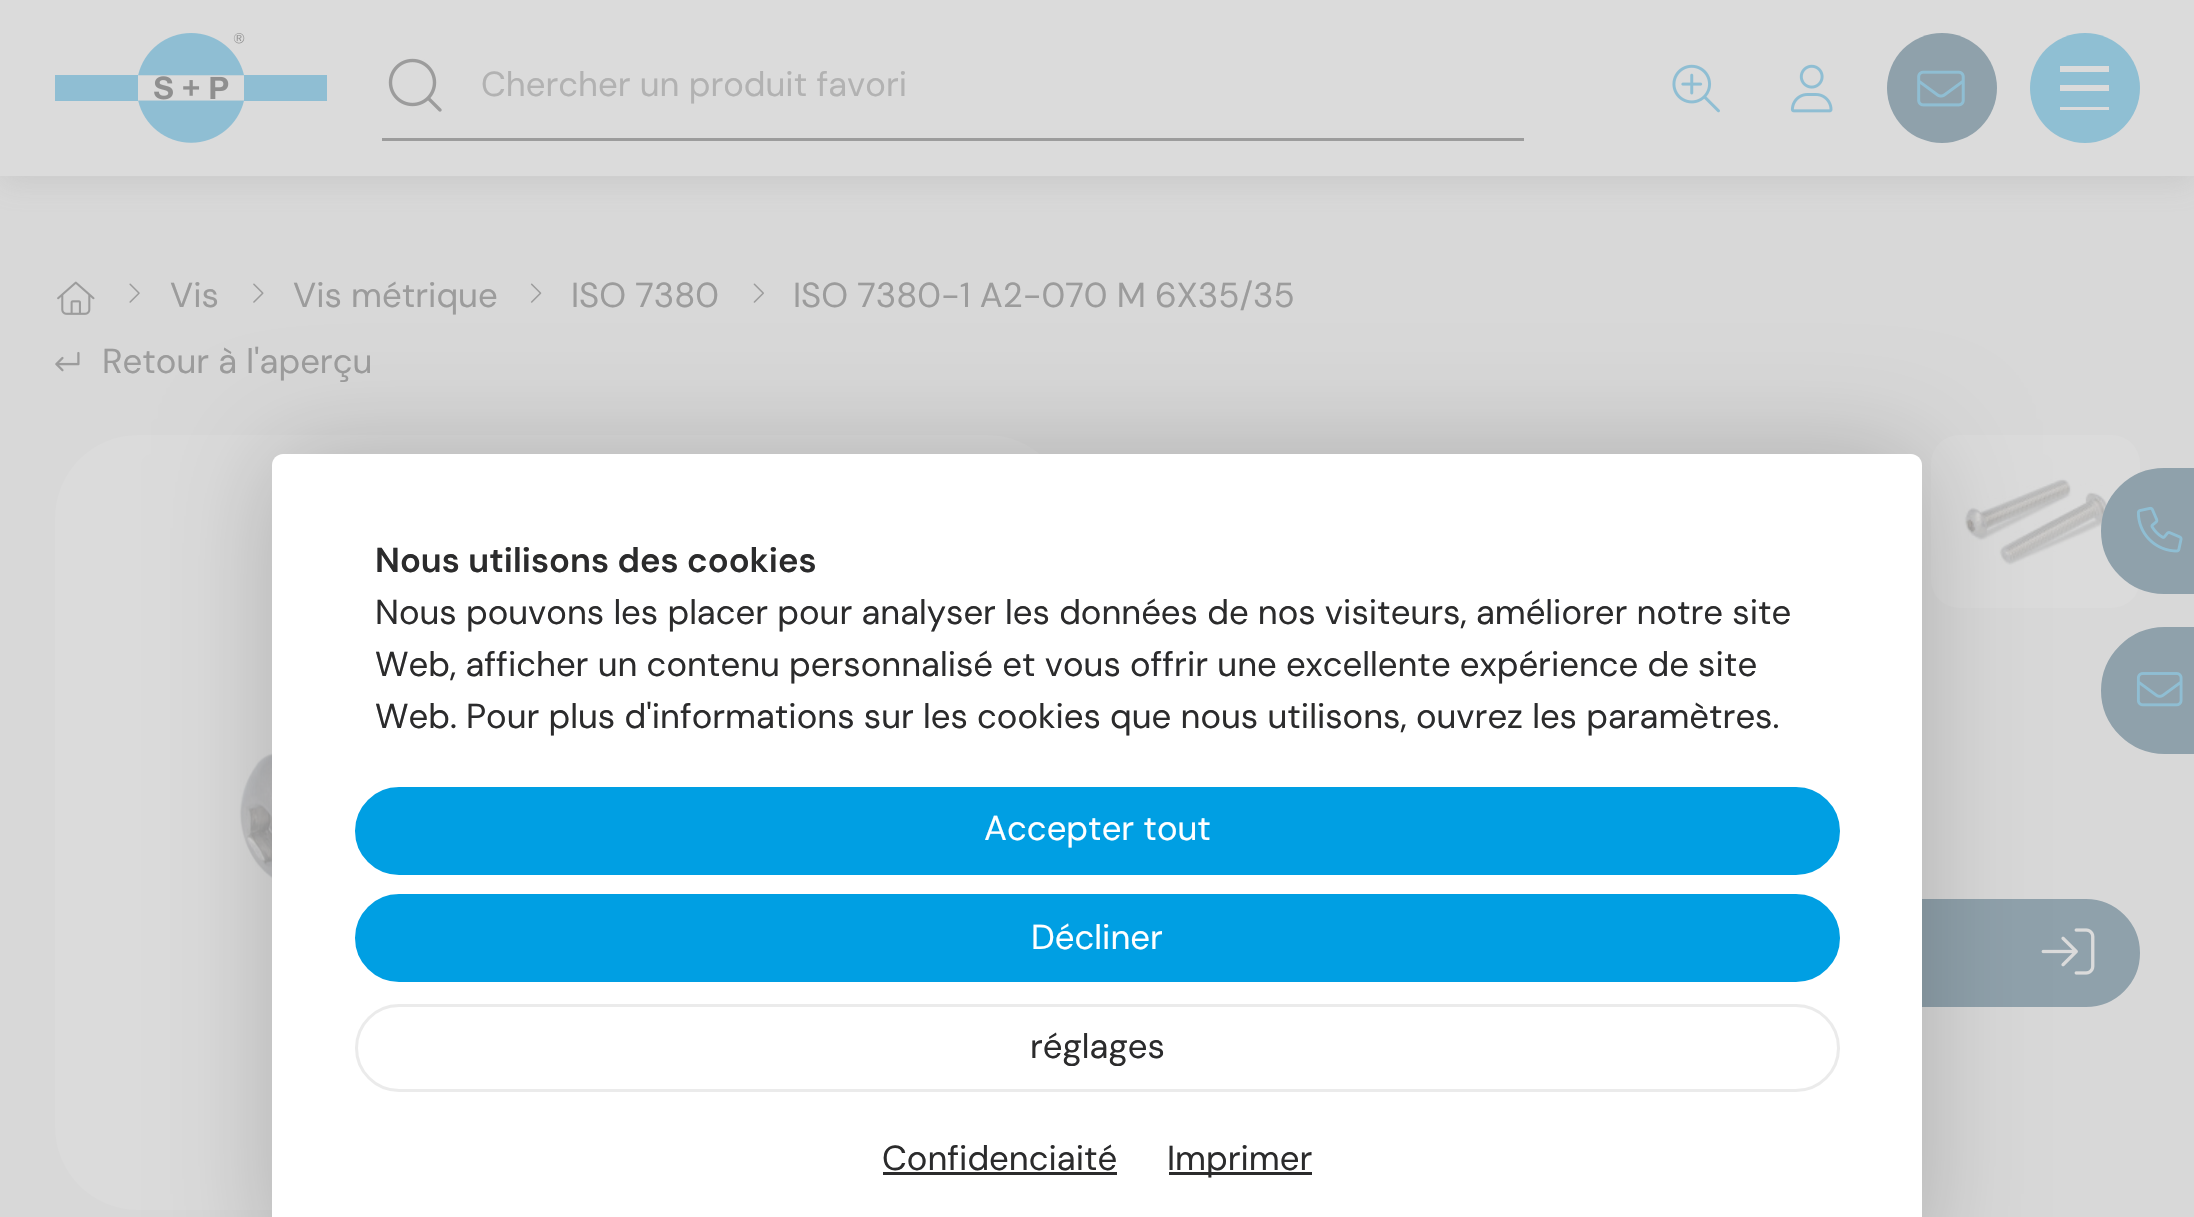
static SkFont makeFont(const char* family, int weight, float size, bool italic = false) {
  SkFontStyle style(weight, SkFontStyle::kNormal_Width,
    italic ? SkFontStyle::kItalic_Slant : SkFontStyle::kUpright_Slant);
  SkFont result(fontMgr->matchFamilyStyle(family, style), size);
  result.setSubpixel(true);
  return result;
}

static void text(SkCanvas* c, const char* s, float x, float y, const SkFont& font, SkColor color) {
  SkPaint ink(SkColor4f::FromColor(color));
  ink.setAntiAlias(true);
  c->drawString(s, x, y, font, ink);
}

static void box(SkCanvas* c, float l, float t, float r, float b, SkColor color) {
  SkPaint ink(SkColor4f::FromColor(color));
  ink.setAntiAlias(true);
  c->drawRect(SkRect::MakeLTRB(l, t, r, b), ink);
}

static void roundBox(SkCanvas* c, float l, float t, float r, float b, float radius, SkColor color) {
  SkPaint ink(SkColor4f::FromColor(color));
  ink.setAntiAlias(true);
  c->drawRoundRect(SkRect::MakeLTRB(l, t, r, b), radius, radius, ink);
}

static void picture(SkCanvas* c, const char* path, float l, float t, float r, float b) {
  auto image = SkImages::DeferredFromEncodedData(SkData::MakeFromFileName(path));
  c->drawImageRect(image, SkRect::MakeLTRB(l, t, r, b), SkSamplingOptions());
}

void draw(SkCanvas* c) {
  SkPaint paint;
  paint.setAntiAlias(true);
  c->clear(0xffd8d8d8);
  paint.setColor(0x338f8f8f);
  paint.setMaskFilter(SkMaskFilter::MakeBlur(kNormal_SkBlurStyle, 14));
  c->drawRect(SkRect::MakeLTRB(0, 8, 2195, 184), paint);
  paint.setMaskFilter(nullptr);
  box(c, 0, 0, 2194, 176, 0xffdbdbdb);
  picture(c, "img_01.png", 55, 33, 327, 143);
  box(c, 382, 138, 1524, 141, 0xff9c9c9c);
  picture(c, "img_02.png", 388, 58, 442, 112);
  SkFont face1 = makeFont("DM Sans", 400, 34.65f);
  text(c, "Chercher un produit favori", 481, 96, face1, 0xffb2b2b2);
  picture(c, "img_03.png", 1672, 64, 1720, 113);
  picture(c, "img_04.png", 1790, 64, 1833, 113);
  paint.setColor(0xff8fa1ab);
  c->drawCircle(1942, 88, 55, paint);
  picture(c, "img_05.png", 1917, 70, 1965, 107);
  paint.setColor(0xff8fbfd3);
  c->drawCircle(2085, 88, 55, paint);
  box(c, 2060, 66, 2109, 72, 0xffdbdbdb);
  box(c, 2060, 85, 2109, 91, 0xffdbdbdb);
  box(c, 2060, 107, 2109, 110, 0xffdbdbdb);
  picture(c, "img_06.png", 57, 281, 95, 315);
  picture(c, "img_07.png", 129, 283, 140, 303);
  text(c, "Vis", 170, 307, face1, 0xff9c9c9c);
  picture(c, "img_08.png", 253, 283, 264, 303);
  text(c, "Vis métrique", 293, 307, face1, 0xff9c9c9c);
  picture(c, "img_09.png", 530, 283, 542, 303);
  text(c, "ISO 7380", 571, 307, face1, 0xff9c9c9c);
  picture(c, "img_10.png", 753, 283, 764, 303);
  text(c, "ISO 7380-1 A2-070 M 6X35/35", 793, 307, face1, 0xff9c9c9c);
  picture(c, "img_11.png", 55, 351, 80, 372);
  text(c, "Retour à l'aperçu", 102, 373, face1, 0xff9c9c9c);
  roundBox(c, 55, 435, 1070, 1210, 83, 0xffdbdbdb);
  picture(c, "img_12.png", 239, 629, 272, 1024);
  roundBox(c, 1931, 435, 2140, 608, 28, 0xffdbdbdb);
  picture(c, "img_13.png", 1964, 478, 2109, 565);
  paint.setColor(0xff8fa1ab);
  c->drawRoundRect(SkRect::MakeLTRB(1126.5f, 900.5f, 2138.5f, 1005.5f), 52.5f, 52.5f, paint);
  paint.setStyle(SkPaint::kStroke_Style);
  paint.setStrokeWidth(3);
  c->drawRoundRect(SkRect::MakeLTRB(1126.5f, 900.5f, 2138.5f, 1005.5f), 52.5f, 52.5f, paint);
  picture(c, "img_14.png", 2041, 928, 2095, 975);
  paint.setStyle(SkPaint::kFill_Style);
  paint.setColor(0x33000000);
  paint.setMaskFilter(SkMaskFilter::MakeBlur(kNormal_SkBlurStyle, 55));
  c->drawRoundRect(SkRect::MakeLTRB(272, 454, 1922, 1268), 11, 11, paint);
  paint.setMaskFilter(nullptr);
  paint.setColor(0xffffffff);
  c->drawPath(SkPathBuilder().moveTo(283, 454).lineTo(1911, 454).cubicTo(1917, 454, 1922, 459, 1922, 465).lineTo(1922, 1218).lineTo(272, 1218).lineTo(272, 465).cubicTo(272, 459, 277, 454, 283, 454).close().detach(), paint);
  SkFont face2 = makeFont("DM Sans", 600, 34.65f);
  text(c, "Nous utilisons des cookies", 375, 572, face2, 0xff2b2b2c);
  text(c, "Nous pouvons les placer pour analyser les données de nos visiteurs, améliorer notre site", 375, 624, face1, 0xff2b2b2c);
  text(c, "Web, afficher un contenu personnalisé et vous offrir une excellente expérience de site", 375, 676, face1, 0xff2b2b2c);
  text(c, "Web. Pour plus d'informations sur les cookies que nous utilisons, ouvrez les paramètres.", 375, 728, face1, 0xff2b2b2c);
  paint.setColor(0xff009fe3);
  c->drawRoundRect(SkRect::MakeLTRB(356.5f, 788.5f, 1838.5f, 873.5f), 42.5f, 42.5f, paint);
  paint.setStyle(SkPaint::kStroke_Style);
  c->drawRoundRect(SkRect::MakeLTRB(356.5f, 788.5f, 1838.5f, 873.5f), 42.5f, 42.5f, paint);
  text(c, "Accepter tout", 984, 840, face1, 0xffffffff);
  paint.setStyle(SkPaint::kFill_Style);
  c->drawRoundRect(SkRect::MakeLTRB(356.5f, 895.5f, 1838.5f, 980.5f), 42.5f, 42.5f, paint);
  paint.setStyle(SkPaint::kStroke_Style);
  c->drawRoundRect(SkRect::MakeLTRB(356.5f, 895.5f, 1838.5f, 980.5f), 42.5f, 42.5f, paint);
  text(c, "Décliner", 1031, 949, face1, 0xffffffff);
  paint.setColor(0xffebebeb);
  c->drawRoundRect(SkRect::MakeLTRB(356.5f, 1005.5f, 1838.5f, 1090.5f), 42.5f, 42.5f, paint);
  text(c, "réglages", 1030, 1058, face1, 0xff2b2b2c);
  text(c, "Confidenciaité", 882, 1170, face1, 0xff2b2b2c);
  box(c, 883, 1172, 1117, 1175, 0xff2b2b2c);
  box(c, 1169, 1172, 1312, 1175, 0xff2b2b2c);
  text(c, "Imprimer", 1167, 1170, face1, 0xff2b2b2c);
  paint.setStyle(SkPaint::kFill_Style);
  paint.setColor(0xff8fa1ab);
  c->drawPath(SkPathBuilder().moveTo(2164, 469.5f).lineTo(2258.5f, 469.5f).lineTo(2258.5f, 592.5f).lineTo(2164, 592.5f).cubicTo(2130, 592.5f, 2102.5f, 565, 2102.5f, 531).cubicTo(2102.5f, 497, 2130, 469.5f, 2164, 469.5f).close().detach(), paint);
  paint.setStyle(SkPaint::kStroke_Style);
  c->drawPath(SkPathBuilder().moveTo(2164, 469.5f).lineTo(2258.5f, 469.5f).lineTo(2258.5f, 592.5f).lineTo(2164, 592.5f).cubicTo(2130, 592.5f, 2102.5f, 565, 2102.5f, 531).cubicTo(2102.5f, 497, 2130, 469.5f, 2164, 469.5f).close().detach(), paint);
  picture(c, "img_15.png", 2136, 506, 2183, 553);
  paint.setStyle(SkPaint::kFill_Style);
  c->drawPath(SkPathBuilder().moveTo(2164.5f, 628.5f).lineTo(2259.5f, 628.5f).lineTo(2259.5f, 752.5f).lineTo(2164.5f, 752.5f).cubicTo(2130.5f, 752.5f, 2102.5f, 724.5f, 2102.5f, 690.5f).cubicTo(2102.5f, 656.5f, 2130.5f, 628.5f, 2164.5f, 628.5f).close().detach(), paint);
  paint.setStyle(SkPaint::kStroke_Style);
  c->drawPath(SkPathBuilder().moveTo(2164.5f, 628.5f).lineTo(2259.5f, 628.5f).lineTo(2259.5f, 752.5f).lineTo(2164.5f, 752.5f).cubicTo(2130.5f, 752.5f, 2102.5f, 724.5f, 2102.5f, 690.5f).cubicTo(2102.5f, 656.5f, 2130.5f, 628.5f, 2164.5f, 628.5f).close().detach(), paint);
  picture(c, "img_16.png", 2136, 672, 2183, 707);
}
